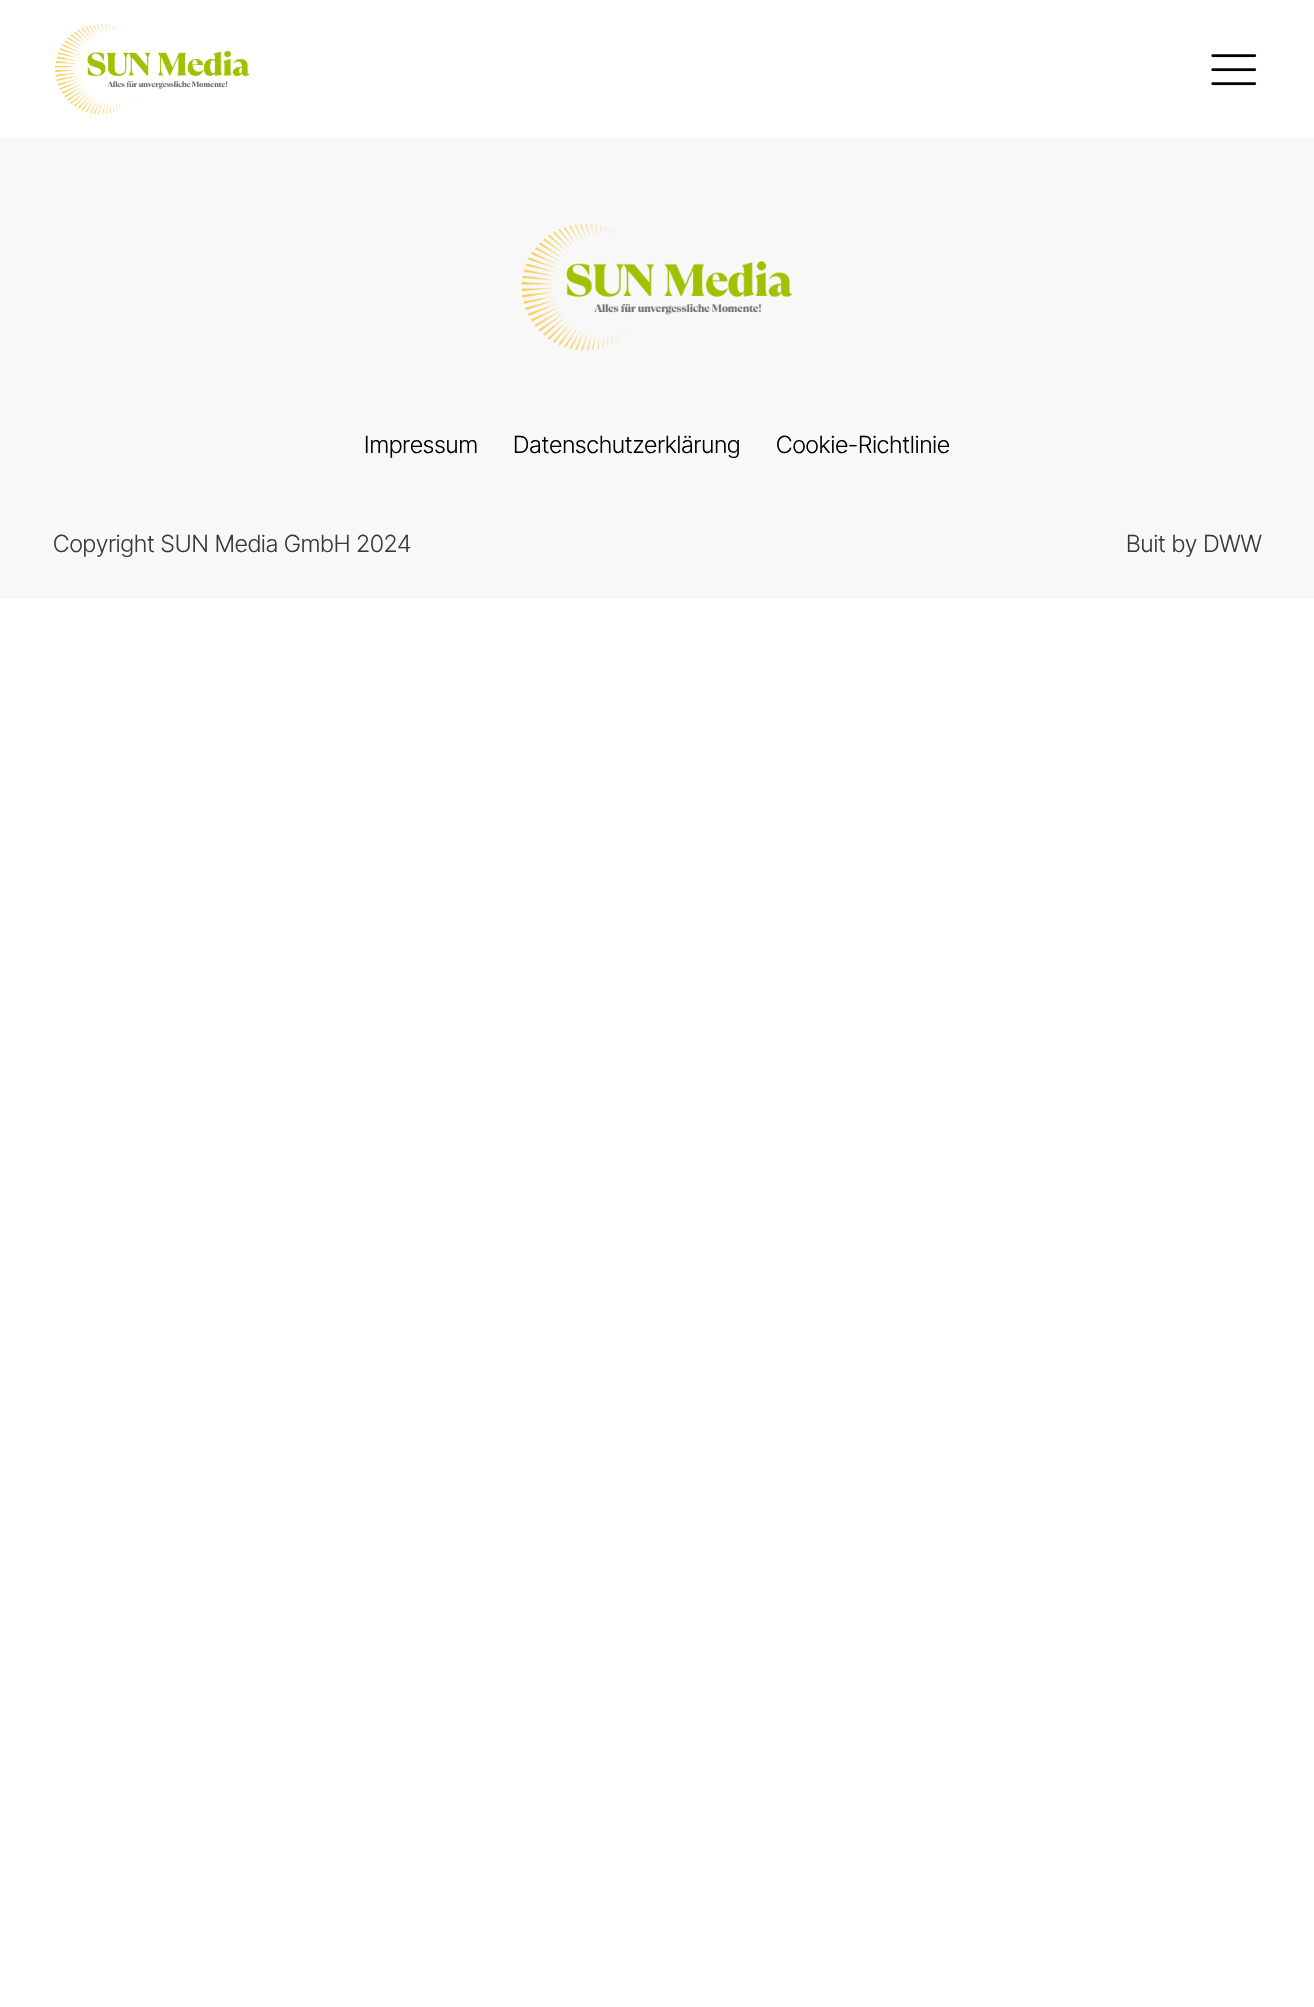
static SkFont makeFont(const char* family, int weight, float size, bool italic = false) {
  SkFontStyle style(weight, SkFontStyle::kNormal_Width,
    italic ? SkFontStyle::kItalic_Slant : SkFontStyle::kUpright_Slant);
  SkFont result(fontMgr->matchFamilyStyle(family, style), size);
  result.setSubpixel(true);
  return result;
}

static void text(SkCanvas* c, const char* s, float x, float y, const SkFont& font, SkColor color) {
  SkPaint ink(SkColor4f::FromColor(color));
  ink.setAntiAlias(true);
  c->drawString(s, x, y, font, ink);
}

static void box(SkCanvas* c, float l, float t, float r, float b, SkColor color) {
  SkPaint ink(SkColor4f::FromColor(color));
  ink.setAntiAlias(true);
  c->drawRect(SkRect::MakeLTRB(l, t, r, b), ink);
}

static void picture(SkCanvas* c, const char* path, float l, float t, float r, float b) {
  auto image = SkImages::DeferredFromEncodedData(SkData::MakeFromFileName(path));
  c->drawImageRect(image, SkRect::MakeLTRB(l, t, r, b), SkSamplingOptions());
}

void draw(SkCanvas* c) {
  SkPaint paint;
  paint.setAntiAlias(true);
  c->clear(0xffffffff);
  picture(c, "img_01.png", 55, 24, 250, 115);
  picture(c, "img_02.png", 1211, 54, 1257, 86);
  box(c, 0, 138, 1314, 599, 0xfff8f8f8);
  picture(c, "img_03.png", 521, 223, 793, 351);
  SkFont face1 = makeFont("Inter Tight", 300, 23.6f);
  text(c, "Impressum", 364, 453, face1, 0xff000000);
  text(c, "Datenschutzerklärung", 513, 453, face1, 0xff000000);
  text(c, "Cookie-Richtlinie", 776, 453, face1, 0xff000000);
  text(c, "Copyright SUN Media GmbH 2024", 53, 552, face1, 0xff3a3a3a);
  text(c, "Buit by DWW", 1126, 552, face1, 0xff3a3a3a);
}
